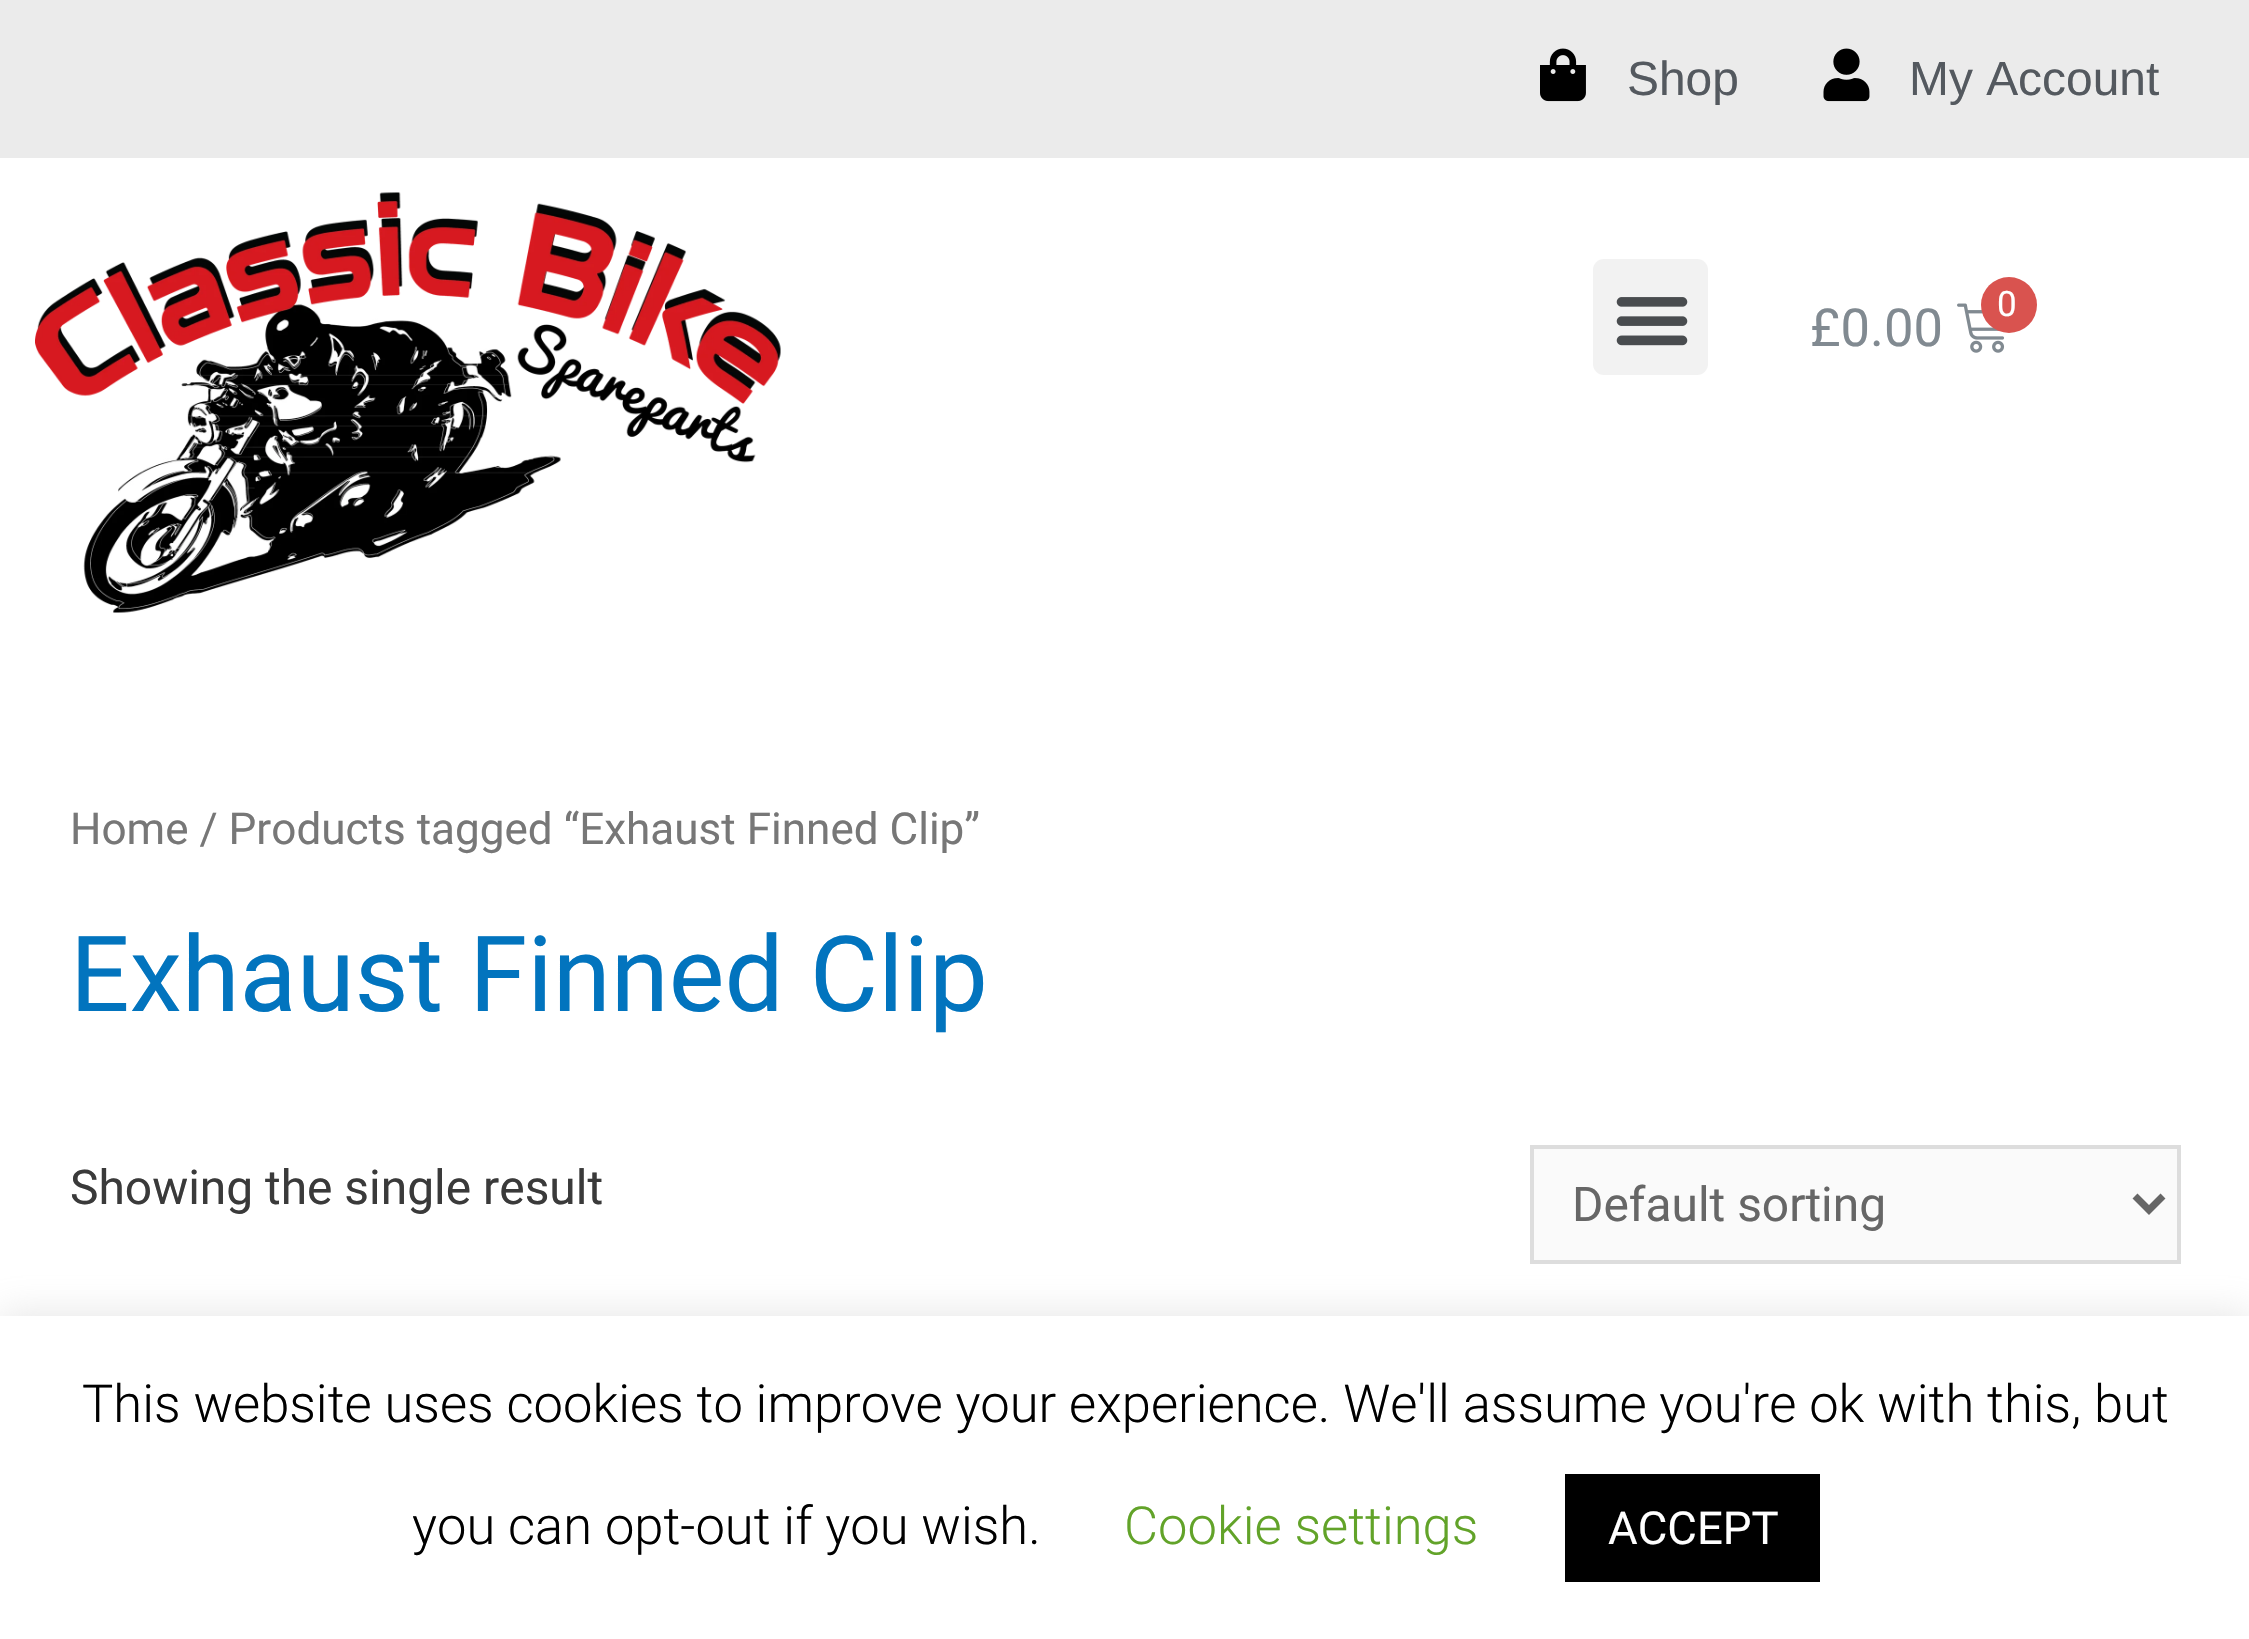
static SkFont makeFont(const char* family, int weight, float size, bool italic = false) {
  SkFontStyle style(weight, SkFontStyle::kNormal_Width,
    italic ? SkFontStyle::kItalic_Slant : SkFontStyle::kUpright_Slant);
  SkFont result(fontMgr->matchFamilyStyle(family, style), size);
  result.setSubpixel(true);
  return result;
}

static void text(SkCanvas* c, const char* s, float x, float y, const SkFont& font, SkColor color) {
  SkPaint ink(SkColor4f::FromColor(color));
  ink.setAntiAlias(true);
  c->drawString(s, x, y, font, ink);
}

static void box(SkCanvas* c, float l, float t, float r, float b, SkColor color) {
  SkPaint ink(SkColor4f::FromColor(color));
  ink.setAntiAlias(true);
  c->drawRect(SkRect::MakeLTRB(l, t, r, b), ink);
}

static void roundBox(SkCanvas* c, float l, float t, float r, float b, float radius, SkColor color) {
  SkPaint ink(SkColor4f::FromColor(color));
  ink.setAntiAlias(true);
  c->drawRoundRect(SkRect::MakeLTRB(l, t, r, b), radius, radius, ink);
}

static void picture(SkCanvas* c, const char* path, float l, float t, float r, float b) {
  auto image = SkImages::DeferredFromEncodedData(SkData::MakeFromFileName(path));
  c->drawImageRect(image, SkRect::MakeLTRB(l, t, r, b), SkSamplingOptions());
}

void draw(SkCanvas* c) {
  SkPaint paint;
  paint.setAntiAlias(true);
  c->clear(0xffffffff);
  box(c, 0, 0, 2249, 158, 0xffebebeb);
  picture(c, "img_01.png", 1540, 48, 1586, 102);
  SkFont face1 = makeFont("Liberation Sans", 400, 47.9f);
  text(c, "Shop", 1627, 95, face1, 0xff54595f);
  picture(c, "img_02.png", 1823, 48, 1870, 102);
  text(c, "My Account", 1909, 95, face1, 0xff54595f);
  picture(c, "img_03.png", 35, 192, 781, 613);
  roundBox(c, 1593, 259, 1708, 375, 11, 0xfff2f2f2);
  picture(c, "img_04.png", 1616, 297, 1688, 346);
  picture(c, "img_05.png", 1957, 303, 2005, 353);
  paint.setColor(0xffd9534f);
  c->drawCircle(2009, 305, 28, paint);
  SkFont face2 = makeFont("Roboto", 400, 35);
  text(c, "0", 1997, 316, face2, 0xffffffff);
  SkFont face3 = makeFont("Roboto", 400, 52.5f);
  text(c, "£0.00", 1810, 346, face3, 0xff818a91);
  SkFont face4 = makeFont("Roboto", 400, 44.05f);
  text(c, "Home / Products tagged “Exhaust Finned Clip”", 70, 844, face4, 0xff777777);
  SkFont face5 = makeFont("Roboto", 400, 105);
  text(c, "Exhaust Finned Clip", 70, 1011, face5, 0xff0274be);
  SkFont face6 = makeFont("Roboto", 400, 47.9f);
  text(c, "Showing the single result", 70, 1204, face6, 0xff3a3a3a);
  paint.setColor(0xfffafafa);
  c->drawRect(SkRect::MakeLTRB(1532, 1147, 2179, 1262), paint);
  paint.setStyle(SkPaint::kStroke_Style);
  paint.setStrokeWidth(4);
  paint.setColor(0xffdddddd);
  c->drawRect(SkRect::MakeLTRB(1532, 1147, 2179, 1262), paint);
  paint.setStrokeWidth(7);
  paint.setColor(0xff666666);
  c->drawPath(SkPathBuilder().moveTo(2135, 1196).lineTo(2149, 1210).lineTo(2163, 1196).detach(), paint);
  text(c, "Default sorting", 1572, 1221, face6, 0xff666666);
  paint.setStyle(SkPaint::kFill_Style);
  paint.setColor(0x4dacabab);
  paint.setMaskFilter(SkMaskFilter::MakeBlur(kNormal_SkBlurStyle, 17.5f));
  c->drawRect(SkRect::MakeLTRB(0, 1313, 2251, 1638), paint);
  paint.setMaskFilter(nullptr);
  box(c, 0, 1316, 2249, 1639, 0xffffffff);
  SkFont face7 = makeFont("Roboto", 300, 52.5f);
  text(c, "This website uses cookies to improve your experience. We'll assume you're ok with this, but", 82, 1422, face7, 0xff000000);
  text(c, "you can opt-out if you wish.", 412, 1544, face7, 0xff000000);
  text(c, "Cookie settings", 1124, 1544, face7, 0xff62a329);
  box(c, 1565, 1474, 1820, 1582, 0xff000000);
  SkFont face8 = makeFont("Roboto", 400, 45.5f);
  text(c, "ACCEPT", 1608, 1544, face8, 0xffffffff);
}
